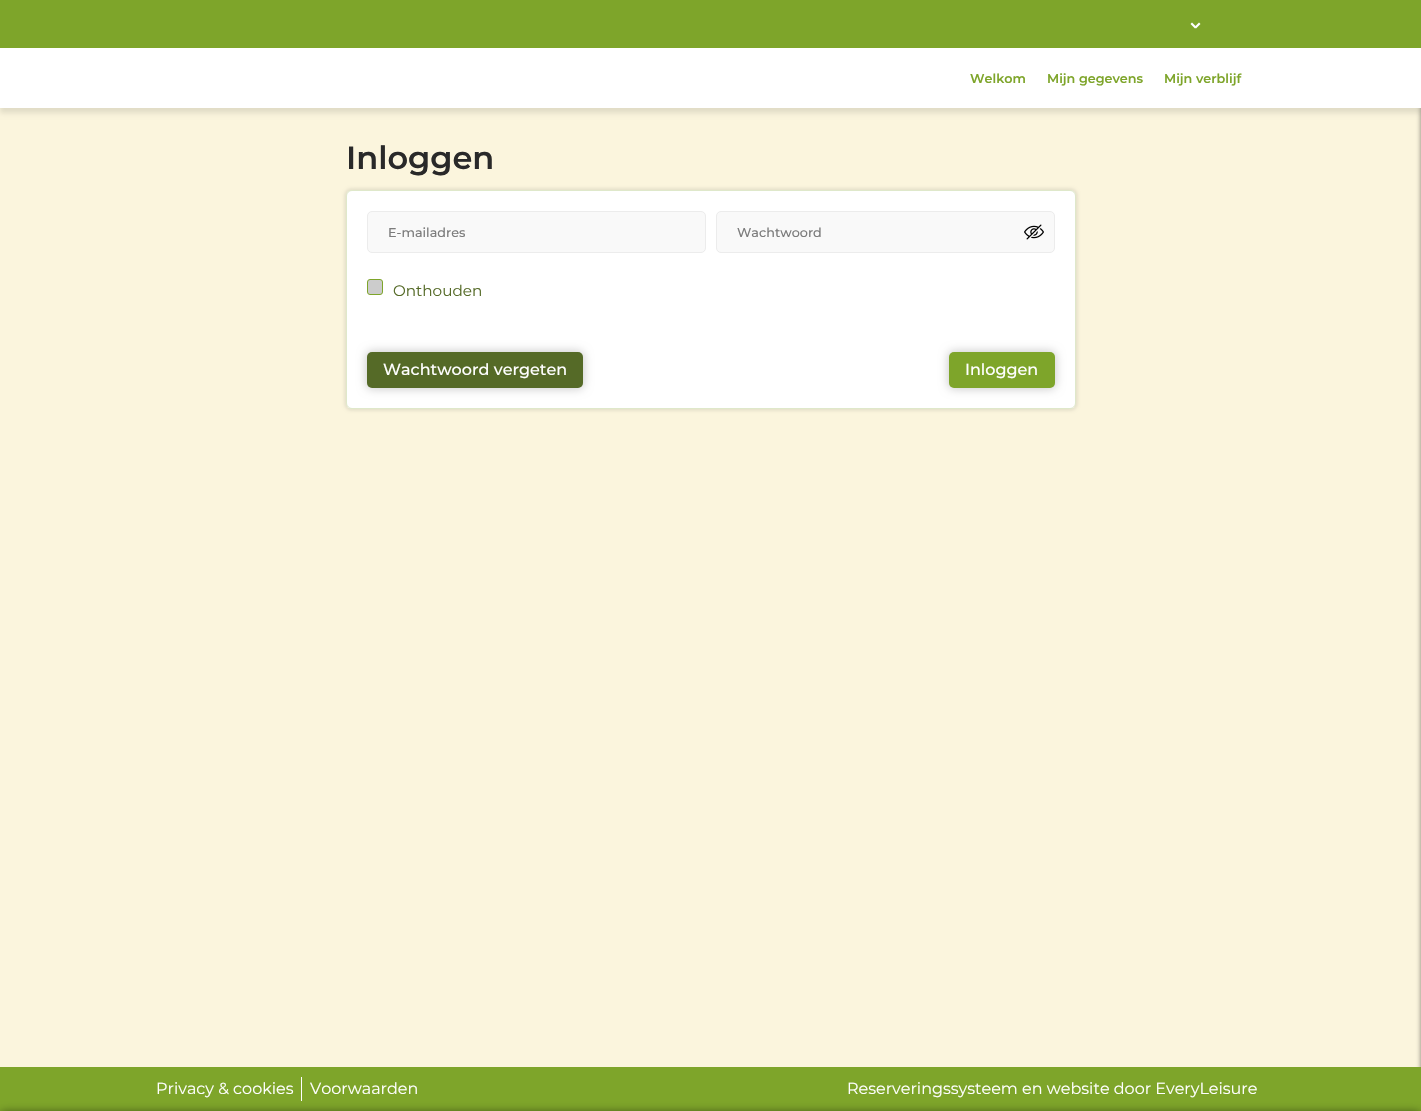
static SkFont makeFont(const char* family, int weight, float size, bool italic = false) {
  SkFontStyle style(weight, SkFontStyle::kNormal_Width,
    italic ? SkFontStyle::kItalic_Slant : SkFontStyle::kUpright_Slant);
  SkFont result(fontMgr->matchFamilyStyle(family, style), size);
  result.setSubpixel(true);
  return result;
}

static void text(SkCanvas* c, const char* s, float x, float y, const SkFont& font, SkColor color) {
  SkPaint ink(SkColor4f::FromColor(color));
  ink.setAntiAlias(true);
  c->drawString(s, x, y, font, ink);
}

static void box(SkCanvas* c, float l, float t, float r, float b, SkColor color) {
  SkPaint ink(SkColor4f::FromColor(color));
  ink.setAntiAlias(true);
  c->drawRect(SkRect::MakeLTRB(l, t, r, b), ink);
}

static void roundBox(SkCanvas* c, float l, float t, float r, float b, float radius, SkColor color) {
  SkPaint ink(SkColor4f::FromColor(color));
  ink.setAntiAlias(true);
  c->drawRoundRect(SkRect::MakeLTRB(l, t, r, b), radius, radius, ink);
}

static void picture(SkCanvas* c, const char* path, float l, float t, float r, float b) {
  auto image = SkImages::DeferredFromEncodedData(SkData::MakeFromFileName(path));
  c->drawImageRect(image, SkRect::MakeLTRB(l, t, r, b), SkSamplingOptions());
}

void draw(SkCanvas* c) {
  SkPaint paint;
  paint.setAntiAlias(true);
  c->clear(0xfffbf5dd);
  paint.setColor(0x1a000000);
  paint.setMaskFilter(SkMaskFilter::MakeBlur(kNormal_SkBlurStyle, 2.5f));
  c->drawRect(SkRect::MakeLTRB(0, 5, 1421, 113), paint);
  paint.setMaskFilter(nullptr);
  paint.setColor(0x80000000);
  paint.setMaskFilter(SkMaskFilter::MakeBlur(kNormal_SkBlurStyle, 2.5f));
  c->drawRect(SkRect::MakeLTRB(1421, 0, 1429, 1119), paint);
  paint.setMaskFilter(nullptr);
  box(c, 0, 48, 1421, 108, 0xffffffff);
  box(c, 0, 0, 1421, 48, 0xff7ea52a);
  paint.setColor(0xffffffff);
  c->drawPath(SkPathBuilder().moveTo(1195, 28.5f).lineTo(1190.5f, 24).lineTo(1192, 22.5f).lineTo(1196.5f, 27).close().detach(), paint);
  c->drawPath(SkPathBuilder().moveTo(1200.5f, 24).lineTo(1196, 28.5f).lineTo(1194.5f, 27).lineTo(1199, 22.5f).close().detach(), paint);
  SkFont face1 = makeFont("Montserrat", 600, 12.75f);
  text(c, "Welkom", 970, 83, face1, 0xff7ea52a);
  text(c, "Mijn gegevens", 1047, 83, face1, 0xff7ea52a);
  text(c, "Mijn verblijf", 1164, 83, face1, 0xff7ea52a);
  SkFont face2 = makeFont("Montserrat", 600, 32);
  text(c, "Inloggen", 346, 169, face2, 0xff292929);
  paint.setColor(0x14000000);
  paint.setMaskFilter(SkMaskFilter::MakeBlur(kNormal_SkBlurStyle, 1.5f));
  c->drawRoundRect(SkRect::MakeLTRB(344, 188, 1078, 411), 8, 8, paint);
  paint.setMaskFilter(nullptr);
  roundBox(c, 346, 190, 1076, 409, 6, 0xffffffff);
  paint.setStyle(SkPaint::kStroke_Style);
  paint.setStrokeWidth(1);
  paint.setColor(0x407ea52a);
  c->drawRoundRect(SkRect::MakeLTRB(346.5f, 190.5f, 1075.5f, 408.5f), 5.5f, 5.5f, paint);
  paint.setStyle(SkPaint::kFill_Style);
  paint.setColor(0xfff9f9f9);
  c->drawRoundRect(SkRect::MakeLTRB(367.5f, 211.5f, 705.5f, 252.5f), 4.5f, 4.5f, paint);
  paint.setStyle(SkPaint::kStroke_Style);
  paint.setColor(0xffececec);
  c->drawRoundRect(SkRect::MakeLTRB(367.5f, 211.5f, 705.5f, 252.5f), 4.5f, 4.5f, paint);
  SkFont face3 = makeFont("Montserrat", 500, 12.75f);
  text(c, "E-mailadres", 388, 237, face3, 0xff7c7c7c);
  paint.setStyle(SkPaint::kFill_Style);
  paint.setColor(0xfff9f9f9);
  c->drawRoundRect(SkRect::MakeLTRB(716.5f, 211.5f, 1054.5f, 252.5f), 4.5f, 4.5f, paint);
  paint.setStyle(SkPaint::kStroke_Style);
  paint.setColor(0xffececec);
  c->drawRoundRect(SkRect::MakeLTRB(716.5f, 211.5f, 1054.5f, 252.5f), 4.5f, 4.5f, paint);
  text(c, "Wachtwoord", 737, 237, face3, 0xff7c7c7c);
  picture(c, "img_01.png", 1024, 224, 1044, 240);
  paint.setStyle(SkPaint::kFill_Style);
  paint.setColor(0xffcccccc);
  c->drawRoundRect(SkRect::MakeLTRB(367.5f, 279.5f, 382.5f, 294.5f), 2.5f, 2.5f, paint);
  paint.setStyle(SkPaint::kStroke_Style);
  paint.setColor(0xff7ea52a);
  c->drawRoundRect(SkRect::MakeLTRB(367.5f, 279.5f, 382.5f, 294.5f), 2.5f, 2.5f, paint);
  SkFont face4 = makeFont("Montserrat", 400, 15.25f);
  text(c, "Onthouden", 393, 296, face4, 0xff556a27);
  paint.setStyle(SkPaint::kFill_Style);
  paint.setColor(0x33000000);
  paint.setMaskFilter(SkMaskFilter::MakeBlur(kNormal_SkBlurStyle, 5));
  c->drawRoundRect(SkRect::MakeLTRB(366, 351, 584, 389), 6, 6, paint);
  paint.setMaskFilter(nullptr);
  roundBox(c, 367, 352, 583, 388, 5, 0xff556a27);
  SkFont face5 = makeFont("Montserrat", 500, 16);
  text(c, "Wachtwoord vergeten", 383, 375, face5, 0xffffffff);
  paint.setMaskFilter(SkMaskFilter::MakeBlur(kNormal_SkBlurStyle, 5));
  c->drawRoundRect(SkRect::MakeLTRB(948, 351, 1056, 389), 6, 6, paint);
  paint.setMaskFilter(nullptr);
  roundBox(c, 949, 352, 1055, 388, 5, 0xff7ea52a);
  text(c, "Inloggen", 965, 375, face5, 0xffffffff);
  box(c, 0, 1067, 1421, 1111, 0xff7ea52a);
  box(c, 301, 1077, 302, 1101, 0xffffffff);
  SkFont face6 = makeFont("Montserrat", 400, 16);
  text(c, "Privacy & cookies", 156, 1094, face6, 0xffffffff);
  text(c, "Voorwaarden", 310, 1094, face6, 0xffffffff);
  text(c, "Reserveringssysteem en website door EveryLeisure", 847, 1094, face6, 0xffffffff);
  paint.setColor(0x80000000);
  paint.setMaskFilter(SkMaskFilter::MakeBlur(kNormal_SkBlurStyle, 5));
  c->drawRect(SkRect::MakeLTRB(1, 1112, 1420, 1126), paint);
  paint.setMaskFilter(nullptr);
}
